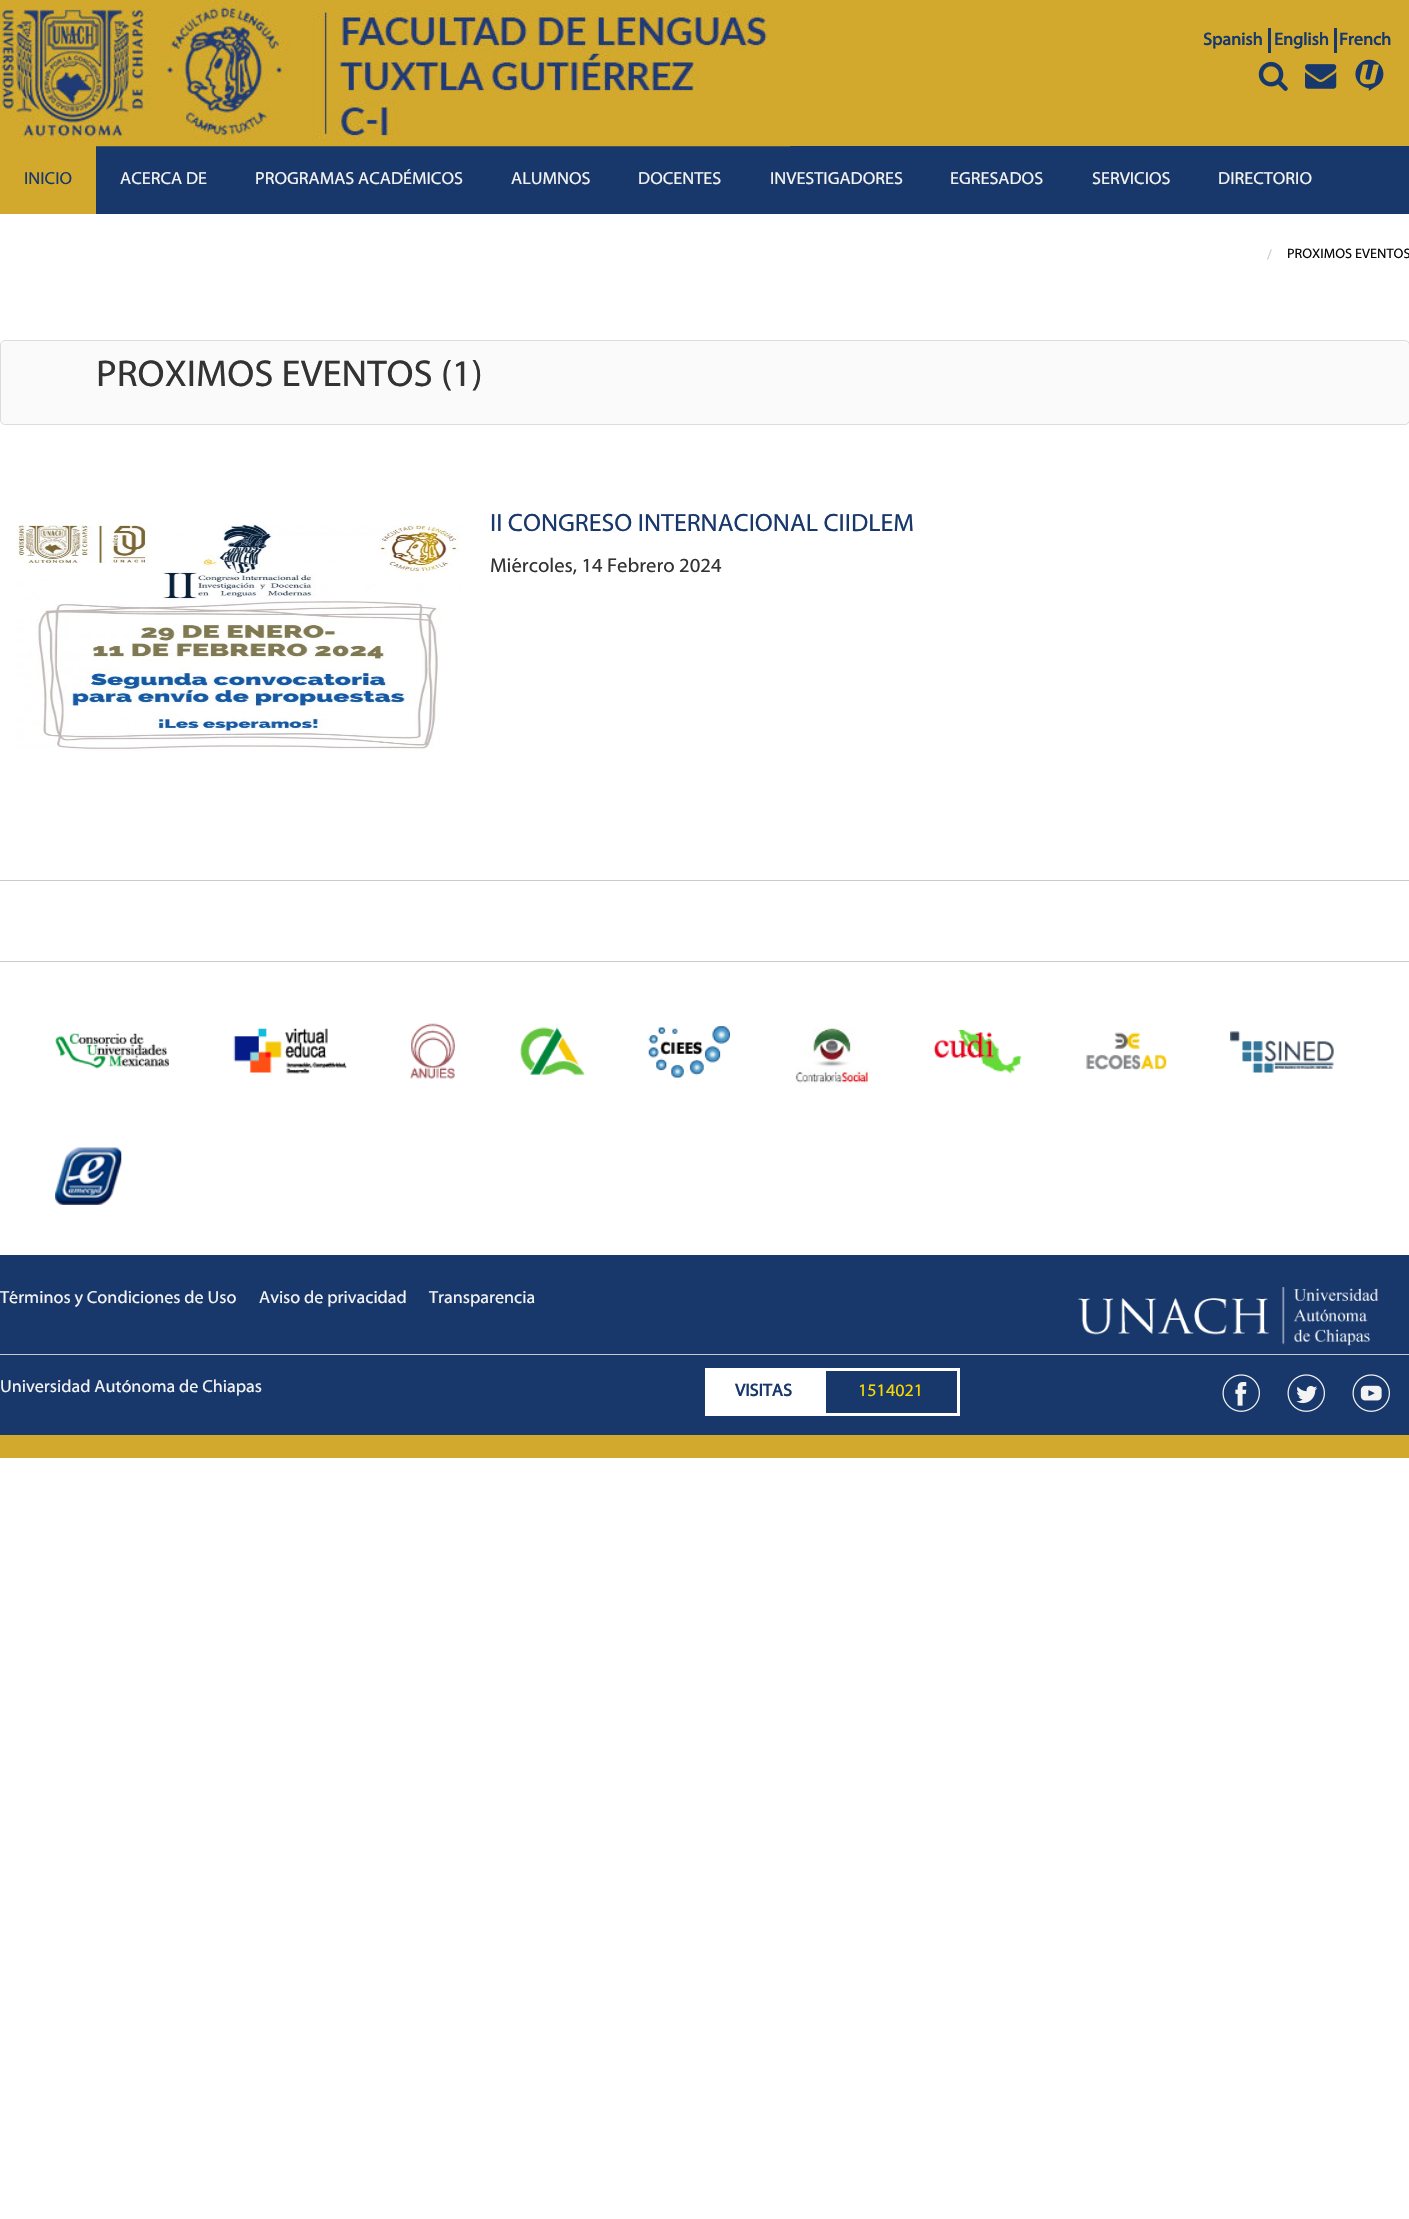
static SkFont makeFont(const char* family, int weight, float size, bool italic = false) {
  SkFontStyle style(weight, SkFontStyle::kNormal_Width,
    italic ? SkFontStyle::kItalic_Slant : SkFontStyle::kUpright_Slant);
  SkFont result(fontMgr->matchFamilyStyle(family, style), size);
  result.setSubpixel(true);
  return result;
}

static void text(SkCanvas* c, const char* s, float x, float y, const SkFont& font, SkColor color) {
  SkPaint ink(SkColor4f::FromColor(color));
  ink.setAntiAlias(true);
  c->drawString(s, x, y, font, ink);
}

static void box(SkCanvas* c, float l, float t, float r, float b, SkColor color) {
  SkPaint ink(SkColor4f::FromColor(color));
  ink.setAntiAlias(true);
  c->drawRect(SkRect::MakeLTRB(l, t, r, b), ink);
}

static void picture(SkCanvas* c, const char* path, float l, float t, float r, float b) {
  auto image = SkImages::DeferredFromEncodedData(SkData::MakeFromFileName(path));
  c->drawImageRect(image, SkRect::MakeLTRB(l, t, r, b), SkSamplingOptions());
}

void draw(SkCanvas* c) {
  SkPaint paint;
  paint.setAntiAlias(true);
  c->clear(0xffffffff);
  box(c, 790, 0, 1409, 146, 0xffd2a92d);
  box(c, 96, 146, 1409, 214, 0xff18386b);
  picture(c, "img_01.png", 0, 0, 790, 147);
  SkFont face1 = makeFont("Myriad", 700, 17.5f);
  text(c, "Spanish", 1203, 45, face1, 0xff18386b);
  box(c, 1268, 28, 1271, 53, 0xff18386b);
  text(c, "English", 1274, 45, face1, 0xff18386b);
  box(c, 1334, 28, 1337, 53, 0xff18386b);
  text(c, "French", 1339, 45, face1, 0xff18386b);
  picture(c, "img_02.png", 1258, 61, 1288, 91);
  picture(c, "img_03.png", 1305, 64, 1337, 89);
  picture(c, "img_04.png", 1355, 59, 1384, 91);
  box(c, 0, 146, 96, 214, 0xffd2a92d);
  SkFont face2 = makeFont("Myriad", 400, 17.5f);
  text(c, "INICIO", 24, 184, face2, 0xff18386b);
  text(c, "ACERCA DE", 120, 184, face2, 0xfff3f3f3);
  text(c, "PROGRAMAS ACADÉMICOS", 255, 184, face2, 0xfff3f3f3);
  text(c, "ALUMNOS", 511, 184, face2, 0xfff3f3f3);
  text(c, "DOCENTES", 638, 184, face2, 0xfff3f3f3);
  text(c, "INVESTIGADORES", 770, 184, face2, 0xfff3f3f3);
  text(c, "EGRESADOS", 950, 184, face2, 0xfff3f3f3);
  text(c, "SERVICIOS", 1092, 184, face2, 0xfff3f3f3);
  text(c, "DIRECTORIO", 1218, 184, face2, 0xfff3f3f3);
  SkFont face3 = makeFont("Myriad", 400, 13.75f);
  text(c, "/", 1267, 259, face3, 0xffcacaca);
  text(c, "PROXIMOS EVENTOS", 1287, 258, face3, 0xff0a0a0a);
  paint.setColor(0xfffafafa);
  c->drawRoundRect(SkRect::MakeLTRB(0.5f, 340.5f, 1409.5f, 424.5f), 4.5f, 4.5f, paint);
  paint.setStyle(SkPaint::kStroke_Style);
  paint.setStrokeWidth(1);
  paint.setColor(0xffdddddd);
  c->drawRoundRect(SkRect::MakeLTRB(0.5f, 340.5f, 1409.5f, 424.5f), 4.5f, 4.5f, paint);
  SkFont face4 = makeFont("Myriad", 400, 37.5f);
  text(c, "PROXIMOS EVENTOS (1)", 96, 386, face4, 0xff333333);
  picture(c, "img_05.png", 17, 524, 462, 751);
  SkFont face5 = makeFont("Myriad", 400, 25);
  text(c, "II CONGRESO INTERNACIONAL CIIDLEM", 490, 531, face5, 0xff18386b);
  SkFont face6 = makeFont("Myriad", 400, 20);
  text(c, "Miércoles, 14 Febrero 2024", 490, 572, face6, 0xff333333);
  box(c, 0, 880, 1409, 881, 0xffcacaca);
  box(c, 0, 961, 1409, 962, 0xffcacaca);
  picture(c, "img_06.png", 55, 1033, 169, 1069);
  picture(c, "img_07.png", 233, 1028, 347, 1074);
  picture(c, "img_08.png", 410, 1023, 455, 1079);
  picture(c, "img_09.png", 520, 1027, 585, 1075);
  picture(c, "img_10.png", 648, 1026, 730, 1078);
  picture(c, "img_11.png", 795, 1028, 870, 1086);
  picture(c, "img_12.png", 933, 1030, 1022, 1074);
  picture(c, "img_13.png", 1086, 1032, 1167, 1070);
  picture(c, "img_14.png", 1230, 1031, 1334, 1073);
  picture(c, "img_15.png", 55, 1147, 122, 1205);
  box(c, 0, 1255, 1409, 1435, 0xff18386b);
  box(c, 0, 1435, 1409, 1458, 0xffd2a92d);
  text(c, "Términos y Condiciones de Uso", 0, 1303, face2, 0xfff3f3f3);
  text(c, "Aviso de privacidad", 259, 1303, face2, 0xfff3f3f3);
  text(c, "Transparencia", 429, 1303, face2, 0xfff3f3f3);
  picture(c, "img_16.png", 1078, 1287, 1379, 1346);
  box(c, 0, 1354, 1409, 1355, 0xffcacaca);
  text(c, "Universidad Autónoma de Chiapas", 0, 1392, face2, 0xfff3f3f3);
  box(c, 705, 1368, 823, 1416, 0xffffffff);
  text(c, "VISITAS", 735, 1396, face1, 0xff18386b);
  paint.setStrokeWidth(3);
  paint.setColor(0xffffffff);
  c->drawRect(SkRect::MakeLTRB(824.5f, 1369.5f, 958.5f, 1414.5f), paint);
  text(c, "1514021", 858, 1396, face2, 0xfffad701);
  picture(c, "img_17.png", 1222, 1374, 1260, 1412);
  picture(c, "img_18.png", 1287, 1374, 1325, 1412);
  picture(c, "img_19.png", 1352, 1374, 1390, 1412);
}
